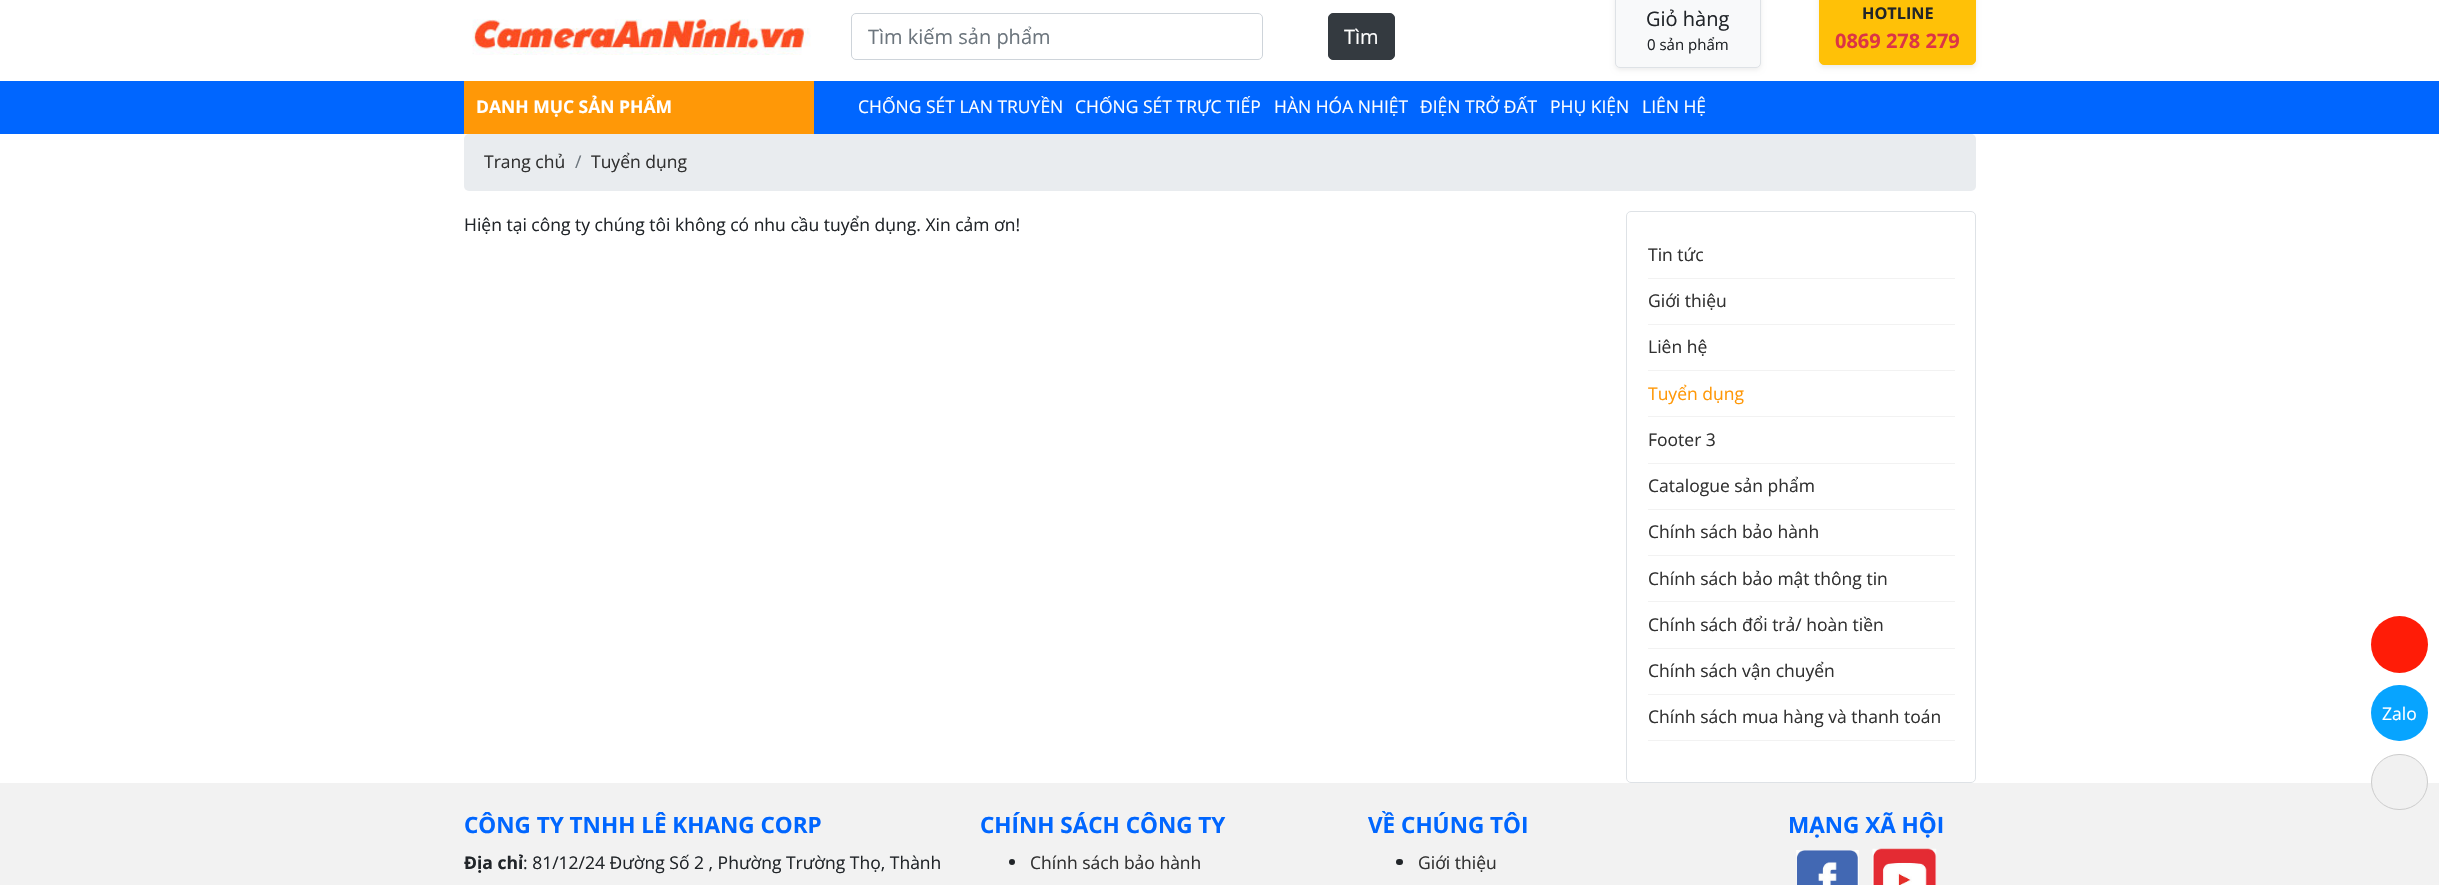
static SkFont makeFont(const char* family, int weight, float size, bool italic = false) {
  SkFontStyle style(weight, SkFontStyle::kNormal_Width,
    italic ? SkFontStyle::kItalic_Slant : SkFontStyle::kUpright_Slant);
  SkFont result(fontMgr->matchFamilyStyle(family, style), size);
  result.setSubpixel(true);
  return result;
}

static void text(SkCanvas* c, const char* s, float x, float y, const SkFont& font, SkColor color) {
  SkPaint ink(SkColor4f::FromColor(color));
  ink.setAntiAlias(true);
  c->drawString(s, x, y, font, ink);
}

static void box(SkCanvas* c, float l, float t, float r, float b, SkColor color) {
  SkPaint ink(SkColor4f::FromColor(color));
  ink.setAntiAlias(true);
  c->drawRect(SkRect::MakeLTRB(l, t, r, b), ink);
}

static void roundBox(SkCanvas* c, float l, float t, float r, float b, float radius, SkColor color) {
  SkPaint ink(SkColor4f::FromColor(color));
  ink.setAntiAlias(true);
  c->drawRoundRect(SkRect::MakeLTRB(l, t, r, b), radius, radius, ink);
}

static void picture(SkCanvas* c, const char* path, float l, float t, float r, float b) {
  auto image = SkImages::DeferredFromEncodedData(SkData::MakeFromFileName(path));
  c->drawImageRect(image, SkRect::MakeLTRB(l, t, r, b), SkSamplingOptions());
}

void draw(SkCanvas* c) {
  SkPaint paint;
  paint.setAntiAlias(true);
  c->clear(0xffffffff);
  picture(c, "img_01.png", 472, 19, 811, 55);
  paint.setStyle(SkPaint::kStroke_Style);
  paint.setStrokeWidth(1);
  paint.setColor(0xffced4da);
  c->drawRoundRect(SkRect::MakeLTRB(851.5f, 13.5f, 1262.5f, 59.5f), 4.5f, 4.5f, paint);
  c->save();
  c->clipRect(SkRect::MakeLTRB(868, 23, 1246, 50));
  SkFont face1 = makeFont("Open Sans", 400, 20);
  text(c, "Tìm kiếm sản phẩm", 868, 44, face1, 0xff6c757d);
  c->restore();
  paint.setStyle(SkPaint::kFill_Style);
  paint.setColor(0xff343a40);
  c->drawRoundRect(SkRect::MakeLTRB(1328.5f, 13.5f, 1394.5f, 59.5f), 4.5f, 4.5f, paint);
  paint.setStyle(SkPaint::kStroke_Style);
  c->drawRoundRect(SkRect::MakeLTRB(1328.5f, 13.5f, 1394.5f, 59.5f), 4.5f, 4.5f, paint);
  text(c, "Tìm", 1344, 44, face1, 0xffffffff);
  paint.setStyle(SkPaint::kFill_Style);
  paint.setColor(0x12000000);
  paint.setMaskFilter(SkMaskFilter::MakeBlur(kNormal_SkBlurStyle, 2.5f));
  c->drawRoundRect(SkRect::MakeLTRB(1615, -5, 1761, 70), 5, 5, paint);
  paint.setMaskFilter(nullptr);
  paint.setColor(0xfff8f9fa);
  c->drawRoundRect(SkRect::MakeLTRB(1615.5f, -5.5f, 1760.5f, 67.5f), 4.5f, 4.5f, paint);
  paint.setStyle(SkPaint::kStroke_Style);
  paint.setColor(0xffdee2e6);
  c->drawRoundRect(SkRect::MakeLTRB(1615.5f, -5.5f, 1760.5f, 67.5f), 4.5f, 4.5f, paint);
  text(c, "Giỏ hàng", 1646, 26, face1, 0xff212529);
  SkFont face2 = makeFont("Open Sans", 400, 15);
  text(c, "0 sản phẩm", 1647, 50, face2, 0xff212529);
  paint.setStyle(SkPaint::kFill_Style);
  paint.setColor(0x12000000);
  paint.setMaskFilter(SkMaskFilter::MakeBlur(kNormal_SkBlurStyle, 2.5f));
  c->drawRoundRect(SkRect::MakeLTRB(1819, -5, 1976, 68), 5, 5, paint);
  paint.setMaskFilter(nullptr);
  paint.setColor(0xffffc107);
  c->drawRoundRect(SkRect::MakeLTRB(1819.5f, -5.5f, 1975.5f, 64.5f), 4.5f, 4.5f, paint);
  paint.setStyle(SkPaint::kStroke_Style);
  c->drawRoundRect(SkRect::MakeLTRB(1819.5f, -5.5f, 1975.5f, 64.5f), 4.5f, 4.5f, paint);
  SkFont face3 = makeFont("Open Sans", 700, 16.25f);
  text(c, "HOTLINE", 1862, 19, face3, 0xff212529);
  SkFont face4 = makeFont("Open Sans", 700, 20);
  text(c, "0869 278 279", 1835, 48, face4, 0xffdc3545);
  box(c, 0, 81, 2439, 134, 0xff0066ff);
  box(c, 464, 81, 814, 134, 0xffff9807);
  SkFont face5 = makeFont("Open Sans", 700, 17.5f);
  text(c, "DANH MỤC SẢN PHẨM", 476, 113, face5, 0xffffffff);
  SkFont face6 = makeFont("Open Sans", 400, 17.5f);
  text(c, "CHỐNG SÉT LAN TRUYỀN", 858, 113, face6, 0xffffffff);
  text(c, "CHỐNG SÉT TRỰC TIẾP", 1075, 113, face6, 0xffffffff);
  text(c, "HÀN HÓA NHIỆT", 1274, 113, face6, 0xffffffff);
  text(c, "ĐIỆN TRỞ ĐẤT", 1420, 113, face6, 0xffffffff);
  text(c, "PHỤ KIỆN", 1550, 113, face6, 0xffffffff);
  text(c, "LIÊN HỆ", 1642, 113, face6, 0xffffffff);
  roundBox(c, 464, 134, 1976, 191, 5, 0xffe9ecef);
  text(c, "Trang chủ", 484, 168, face6, 0xff313131);
  text(c, "/", 575, 168, face6, 0xff6c757d);
  text(c, "Tuyển dụng", 591, 168, face6, 0xff313131);
  text(c, "Hiện tại công ty chúng tôi không có nhu cầu tuyển dụng. Xin cảm ơn!", 464, 231, face6, 0xff212529);
  paint.setColor(0xffdee2e6);
  c->drawRoundRect(SkRect::MakeLTRB(1626.5f, 211.5f, 1975.5f, 782.5f), 4.5f, 4.5f, paint);
  box(c, 1648, 278, 1955, 279, 0xfff2f2f2);
  text(c, "Tin tức", 1648, 261, face6, 0xff313131);
  box(c, 1648, 324, 1955, 325, 0xfff2f2f2);
  text(c, "Giới thiệu", 1648, 307, face6, 0xff313131);
  box(c, 1648, 370, 1955, 371, 0xfff2f2f2);
  text(c, "Liên hệ", 1648, 353, face6, 0xff313131);
  box(c, 1648, 416, 1955, 417, 0xfff2f2f2);
  text(c, "Tuyển dụng", 1648, 400, face6, 0xffff9807);
  box(c, 1648, 463, 1955, 464, 0xfff2f2f2);
  text(c, "Footer 3", 1648, 446, face6, 0xff313131);
  box(c, 1648, 509, 1955, 510, 0xfff2f2f2);
  text(c, "Catalogue sản phẩm", 1648, 492, face6, 0xff313131);
  box(c, 1648, 555, 1955, 556, 0xfff2f2f2);
  text(c, "Chính sách bảo hành", 1648, 538, face6, 0xff313131);
  box(c, 1648, 601, 1955, 602, 0xfff2f2f2);
  text(c, "Chính sách bảo mật thông tin", 1648, 585, face6, 0xff313131);
  box(c, 1648, 648, 1955, 649, 0xfff2f2f2);
  text(c, "Chính sách đổi trả/ hoàn tiền", 1648, 631, face6, 0xff313131);
  box(c, 1648, 694, 1955, 695, 0xfff2f2f2);
  text(c, "Chính sách vận chuyển", 1648, 677, face6, 0xff313131);
  box(c, 1648, 740, 1955, 741, 0xfff2f2f2);
  text(c, "Chính sách mua hàng và thanh toán", 1648, 723, face6, 0xff313131);
  paint.setStyle(SkPaint::kFill_Style);
  paint.setColor(0xffff1c07);
  c->drawCircle(2399.5f, 644.5f, 28.5f, paint);
  roundBox(c, 2371, 685, 2428, 741, 28, 0xff07a4ff);
  text(c, "Zalo", 2382, 720, face6, 0xffffffff);
  box(c, 0, 783, 2439, 885, 0xfff2f2f2);
  paint.setColor(0xfff1f1f1);
  c->drawRoundRect(SkRect::MakeLTRB(2371.5f, 754.5f, 2427.5f, 809.5f), 27.5f, 27.5f, paint);
  paint.setStyle(SkPaint::kStroke_Style);
  paint.setColor(0xffcccccc);
  c->drawRoundRect(SkRect::MakeLTRB(2371.5f, 754.5f, 2427.5f, 809.5f), 27.5f, 27.5f, paint);
  SkFont face7 = makeFont("Open Sans", 700, 22.5f);
  text(c, "CÔNG TY TNHH LÊ KHANG CORP", 464, 833, face7, 0xff0066ff);
  text(c, "Địa chỉ", 464, 869, face5, 0xff212529);
  text(c, ": 81/12/24 Đường Số 2 , Phường Trường Thọ, Thành", 523, 869, face6, 0xff212529);
  text(c, "CHÍNH SÁCH CÔNG TY", 980, 833, face7, 0xff0066ff);
  paint.setStyle(SkPaint::kFill_Style);
  paint.setColor(0xff212529);
  c->drawCircle(1012, 862, 3, paint);
  text(c, "Chính sách bảo hành", 1030, 869, face6, 0xff313131);
  text(c, "VỀ CHÚNG TÔI", 1368, 833, face7, 0xff0066ff);
  roundBox(c, 1396, 859, 1403, 865, 3, 0xff212529);
  text(c, "Giới thiệu", 1418, 869, face6, 0xff313131);
  text(c, "MẠNG XÃ HỘI", 1788, 833, face7, 0xff0066ff);
  picture(c, "img_02.png", 1796, 850, 1859, 885);
  picture(c, "img_03.png", 1872, 848, 1937, 885);
}
